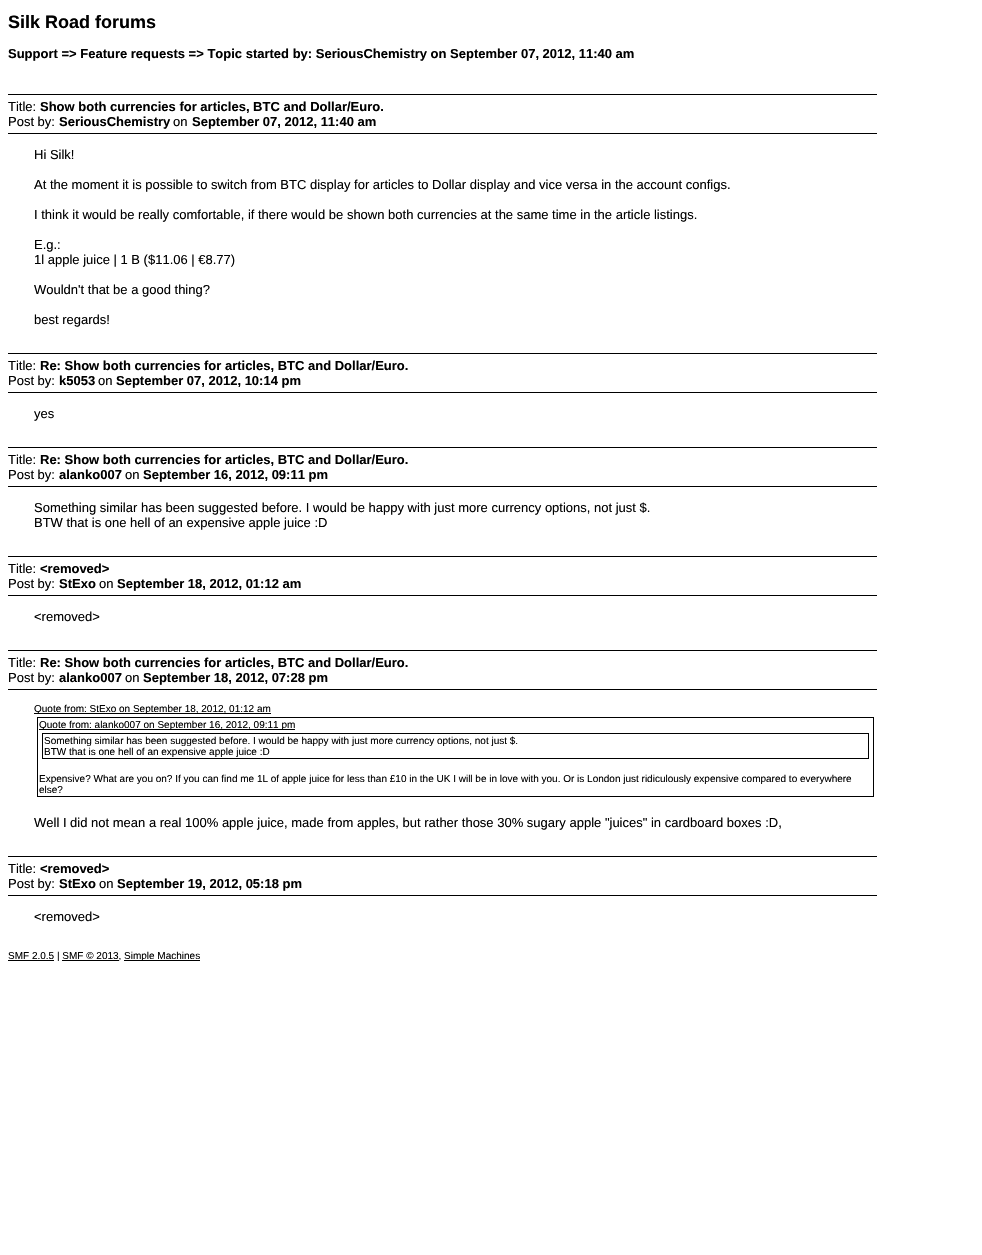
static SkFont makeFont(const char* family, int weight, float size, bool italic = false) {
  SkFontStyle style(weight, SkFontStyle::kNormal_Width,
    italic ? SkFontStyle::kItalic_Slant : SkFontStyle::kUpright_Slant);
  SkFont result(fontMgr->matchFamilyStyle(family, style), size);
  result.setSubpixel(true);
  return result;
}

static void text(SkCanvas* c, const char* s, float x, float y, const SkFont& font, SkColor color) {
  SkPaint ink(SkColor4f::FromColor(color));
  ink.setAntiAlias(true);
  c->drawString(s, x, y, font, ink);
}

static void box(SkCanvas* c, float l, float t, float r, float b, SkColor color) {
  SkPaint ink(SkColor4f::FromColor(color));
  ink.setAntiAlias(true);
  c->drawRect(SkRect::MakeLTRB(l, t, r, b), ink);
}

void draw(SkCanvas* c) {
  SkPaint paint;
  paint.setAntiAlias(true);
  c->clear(0xffffffff);
  SkFont face1 = makeFont("Liberation Sans", 700, 18);
  text(c, "Silk Road forums", 8, 28, face1, 0xff000000);
  SkFont face2 = makeFont("Liberation Sans", 700, 13);
  text(c, "Support => Feature requests => Topic started by: SeriousChemistry on September 07, 2012, 11:40 am", 8, 58, face2, 0xff000000);
  box(c, 8, 94, 877, 95, 0xff000000);
  box(c, 8, 133, 877, 134, 0xff000000);
  SkFont face3 = makeFont("Liberation Sans", 400, 13);
  text(c, "Title:", 8, 111, face3, 0xff000000);
  text(c, "Show both currencies for articles, BTC and Dollar/Euro.", 40, 111, face2, 0xff000000);
  text(c, "Post by:", 8, 126, face3, 0xff000000);
  text(c, "SeriousChemistry", 59, 126, face2, 0xff000000);
  text(c, "on", 173, 126, face3, 0xff000000);
  text(c, "September 07, 2012, 11:40 am", 192, 126, face2, 0xff000000);
  text(c, "Hi Silk!", 34, 159, face3, 0xff000000);
  text(c, "At the moment it is possible to switch from BTC display for articles to Dollar display and vice versa in the account configs.", 34, 189, face3, 0xff000000);
  text(c, "I think it would be really comfortable, if there would be shown both currencies at the same time in the article listings.", 34, 219, face3, 0xff000000);
  text(c, "E.g.:", 34, 249, face3, 0xff000000);
  text(c, "1l apple juice | 1 B ($11.06 | €8.77)", 34, 264, face3, 0xff000000);
  text(c, "Wouldn't that be a good thing?", 34, 294, face3, 0xff000000);
  text(c, "best regards!", 34, 324, face3, 0xff000000);
  box(c, 8, 353, 877, 354, 0xff000000);
  box(c, 8, 392, 877, 393, 0xff000000);
  text(c, "Title:", 8, 370, face3, 0xff000000);
  text(c, "Re: Show both currencies for articles, BTC and Dollar/Euro.", 40, 370, face2, 0xff000000);
  text(c, "Post by:", 8, 385, face3, 0xff000000);
  text(c, "k5053", 59, 385, face2, 0xff000000);
  text(c, "on", 98, 385, face3, 0xff000000);
  text(c, "September 07, 2012, 10:14 pm", 116, 385, face2, 0xff000000);
  text(c, "yes", 34, 418, face3, 0xff000000);
  box(c, 8, 447, 877, 448, 0xff000000);
  box(c, 8, 486, 877, 487, 0xff000000);
  text(c, "Title:", 8, 464, face3, 0xff000000);
  text(c, "Re: Show both currencies for articles, BTC and Dollar/Euro.", 40, 464, face2, 0xff000000);
  text(c, "Post by:", 8, 479, face3, 0xff000000);
  text(c, "alanko007", 59, 479, face2, 0xff000000);
  text(c, "on", 125, 479, face3, 0xff000000);
  text(c, "September 16, 2012, 09:11 pm", 143, 479, face2, 0xff000000);
  text(c, "Something similar has been suggested before. I would be happy with just more currency options, not just $.", 34, 512, face3, 0xff000000);
  text(c, "BTW that is one hell of an expensive apple juice :D", 34, 527, face3, 0xff000000);
  box(c, 8, 556, 877, 557, 0xff000000);
  box(c, 8, 595, 877, 596, 0xff000000);
  text(c, "Title:", 8, 573, face3, 0xff000000);
  text(c, "<removed>", 40, 573, face2, 0xff000000);
  text(c, "Post by:", 8, 588, face3, 0xff000000);
  text(c, "StExo", 59, 588, face2, 0xff000000);
  text(c, "on", 99, 588, face3, 0xff000000);
  text(c, "September 18, 2012, 01:12 am", 117, 588, face2, 0xff000000);
  text(c, "<removed>", 34, 621, face3, 0xff000000);
  box(c, 8, 650, 877, 651, 0xff000000);
  box(c, 8, 689, 877, 690, 0xff000000);
  text(c, "Title:", 8, 667, face3, 0xff000000);
  text(c, "Re: Show both currencies for articles, BTC and Dollar/Euro.", 40, 667, face2, 0xff000000);
  text(c, "Post by:", 8, 682, face3, 0xff000000);
  text(c, "alanko007", 59, 682, face2, 0xff000000);
  text(c, "on", 125, 682, face3, 0xff000000);
  text(c, "September 18, 2012, 07:28 pm", 143, 682, face2, 0xff000000);
  box(c, 34, 713, 271, 714, 0xff000000);
  SkFont face4 = makeFont("Liberation Sans", 400, 10);
  text(c, "Quote from: StExo on September 18, 2012, 01:12 am", 34, 712, face4, 0xff000000);
  paint.setStyle(SkPaint::kStroke_Style);
  paint.setStrokeWidth(1);
  paint.setColor(0xff000000);
  c->drawRect(SkRect::MakeLTRB(37.5f, 717.5f, 873.5f, 796.5f), paint);
  box(c, 39, 729, 295, 730, 0xff000000);
  text(c, "Quote from: alanko007 on September 16, 2012, 09:11 pm", 39, 728, face4, 0xff000000);
  c->drawRect(SkRect::MakeLTRB(42.5f, 733.5f, 868.5f, 758.5f), paint);
  text(c, "Something similar has been suggested before. I would be happy with just more currency options, not just $.", 44, 744, face4, 0xff000000);
  text(c, "BTW that is one hell of an expensive apple juice :D", 44, 755, face4, 0xff000000);
  text(c, "Expensive? What are you on? If you can find me 1L of apple juice for less than £10 in the UK I will be in love with you. Or is London just ridiculously expensive compared to everywhere", 39, 782, face4, 0xff000000);
  text(c, "else?", 39, 793, face4, 0xff000000);
  text(c, "Well I did not mean a real 100% apple juice, made from apples, but rather those 30% sugary apple \"juices\" in cardboard boxes :D,", 34, 827, face3, 0xff000000);
  box(c, 8, 856, 877, 857, 0xff000000);
  box(c, 8, 895, 877, 896, 0xff000000);
  text(c, "Title:", 8, 873, face3, 0xff000000);
  text(c, "<removed>", 40, 873, face2, 0xff000000);
  text(c, "Post by:", 8, 888, face3, 0xff000000);
  text(c, "StExo", 59, 888, face2, 0xff000000);
  text(c, "on", 99, 888, face3, 0xff000000);
  text(c, "September 19, 2012, 05:18 pm", 117, 888, face2, 0xff000000);
  text(c, "<removed>", 34, 921, face3, 0xff000000);
  box(c, 8, 960, 54, 961, 0xff000000);
  text(c, "SMF 2.0.5 | SMF © 2013,", 8, 959, face4, 0xff000000);
  box(c, 62, 960, 119, 961, 0xff000000);
  box(c, 124, 960, 200, 961, 0xff000000);
  text(c, "Simple Machines", 124, 959, face4, 0xff000000);
}
